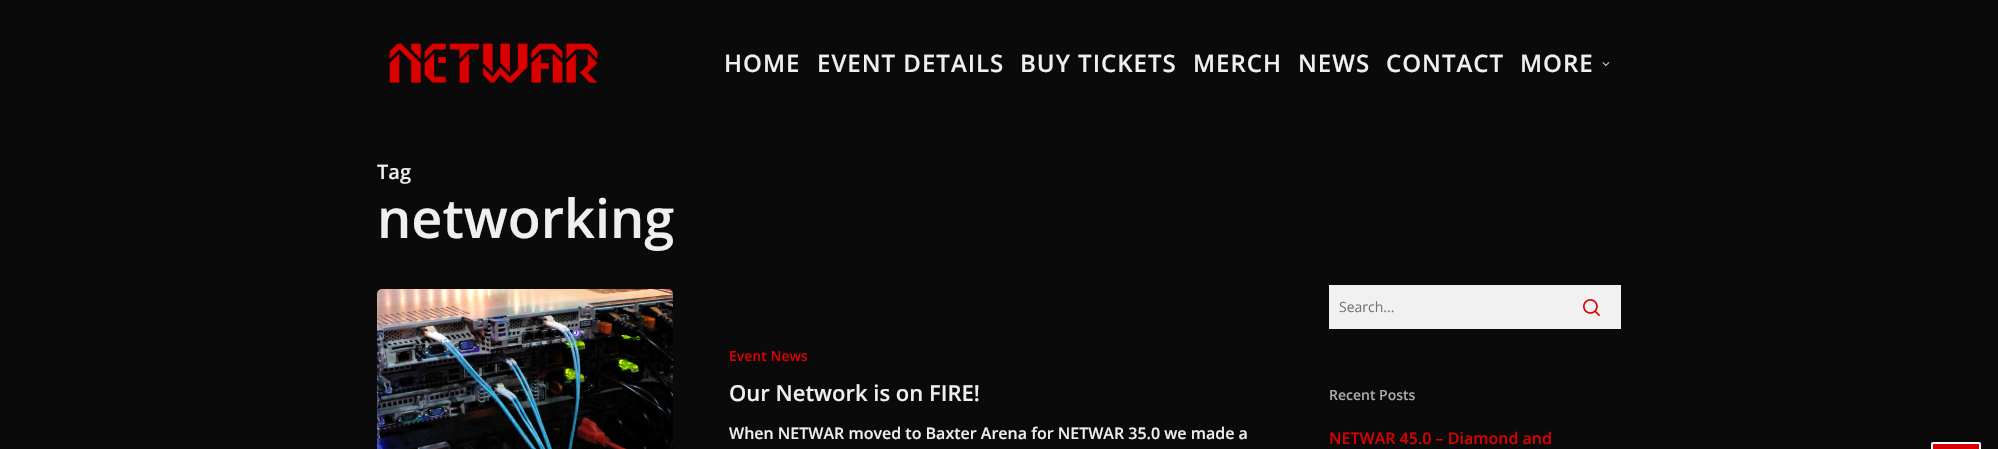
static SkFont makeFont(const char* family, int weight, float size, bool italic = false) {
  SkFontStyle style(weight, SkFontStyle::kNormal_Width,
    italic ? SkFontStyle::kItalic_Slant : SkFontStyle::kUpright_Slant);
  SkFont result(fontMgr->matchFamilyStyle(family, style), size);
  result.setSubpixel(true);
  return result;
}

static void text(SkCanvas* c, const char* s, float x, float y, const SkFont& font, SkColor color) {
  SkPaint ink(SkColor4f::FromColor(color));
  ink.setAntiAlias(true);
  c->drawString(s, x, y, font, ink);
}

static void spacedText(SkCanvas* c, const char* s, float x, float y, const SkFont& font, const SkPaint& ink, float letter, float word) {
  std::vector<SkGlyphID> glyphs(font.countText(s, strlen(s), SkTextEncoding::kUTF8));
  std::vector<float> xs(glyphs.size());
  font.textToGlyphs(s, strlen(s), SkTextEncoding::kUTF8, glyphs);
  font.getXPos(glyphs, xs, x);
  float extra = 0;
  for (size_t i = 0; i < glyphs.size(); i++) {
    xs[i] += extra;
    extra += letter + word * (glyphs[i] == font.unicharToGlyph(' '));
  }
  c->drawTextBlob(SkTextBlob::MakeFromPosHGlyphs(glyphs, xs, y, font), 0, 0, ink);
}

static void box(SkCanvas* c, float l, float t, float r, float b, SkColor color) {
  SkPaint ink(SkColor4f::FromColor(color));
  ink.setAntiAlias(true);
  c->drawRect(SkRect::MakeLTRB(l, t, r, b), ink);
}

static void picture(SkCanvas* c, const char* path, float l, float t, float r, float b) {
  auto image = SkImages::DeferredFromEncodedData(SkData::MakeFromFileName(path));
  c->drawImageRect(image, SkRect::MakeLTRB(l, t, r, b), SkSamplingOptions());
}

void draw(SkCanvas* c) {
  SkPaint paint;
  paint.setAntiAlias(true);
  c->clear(0xff0a0a0a);
  picture(c, "img_01.png", 389, 43, 598, 83);
  SkFont face1 = makeFont("Open Sans", 600, 24);
  paint.setColor(0xffefefef);
  spacedText(c, "HOME", 724, 72, face1, paint, 1, 0);
  spacedText(c, "EVENT DETAILS", 817, 72, face1, paint, 1, 0);
  spacedText(c, "BUY TICKETS", 1020, 72, face1, paint, 1, 0);
  spacedText(c, "MERCH", 1193, 72, face1, paint, 1, 0);
  spacedText(c, "NEWS", 1298, 72, face1, paint, 1, 0);
  spacedText(c, "CONTACT", 1386, 72, face1, paint, 1, 0);
  spacedText(c, "MORE", 1520, 72, face1, paint, 1, 0);
  picture(c, "img_02.png", 1602, 62, 1610, 66);
  SkFont face2 = makeFont("Open Sans", 600, 20);
  text(c, "Tag", 377, 179, face2, 0xffefefef);
  SkFont face3 = makeFont("Open Sans", 600, 54);
  text(c, "networking", 377, 238, face3, 0xffefefef);
  picture(c, "img_03.png", 377, 289, 673, 449);
  SkFont face4 = makeFont("Open Sans", 600, 14);
  text(c, "Event News", 729, 361, face4, 0xffd90000);
  SkFont face5 = makeFont("Open Sans", 600, 22);
  text(c, "Our Network is on FIRE!", 729, 401, face5, 0xffefefef);
  SkFont face6 = makeFont("Open Sans", 600, 16);
  text(c, "When NETWAR moved to Baxter Arena for NETWAR 35.0 we made a", 729, 439, face6, 0xffefefef);
  box(c, 1329, 285, 1621, 329, 0xfff1f1f1);
  SkFont face7 = makeFont("Open Sans", 400, 14);
  text(c, "Search...", 1339, 312, face7, 0xff757575);
  picture(c, "img_04.png", 1583, 299, 1600, 316);
  text(c, "Recent Posts", 1329, 400, face4, 0xffaaaaaa);
  text(c, "NETWAR 45.0 – Diamond and", 1329, 444, face6, 0xffd90000);
  paint.setColor(0xffd90000);
  c->drawRoundRect(SkRect::MakeLTRB(1932, 443, 1980, 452), 1, 1, paint);
  paint.setStyle(SkPaint::kStroke_Style);
  paint.setStrokeWidth(2);
  paint.setColor(0xffffffff);
  c->drawRoundRect(SkRect::MakeLTRB(1932, 443, 1980, 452), 1, 1, paint);
}
